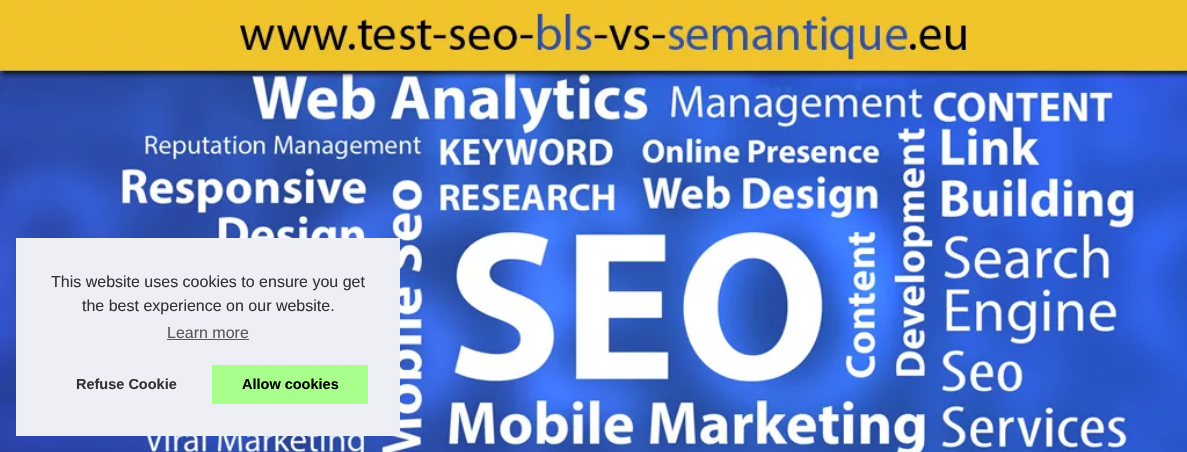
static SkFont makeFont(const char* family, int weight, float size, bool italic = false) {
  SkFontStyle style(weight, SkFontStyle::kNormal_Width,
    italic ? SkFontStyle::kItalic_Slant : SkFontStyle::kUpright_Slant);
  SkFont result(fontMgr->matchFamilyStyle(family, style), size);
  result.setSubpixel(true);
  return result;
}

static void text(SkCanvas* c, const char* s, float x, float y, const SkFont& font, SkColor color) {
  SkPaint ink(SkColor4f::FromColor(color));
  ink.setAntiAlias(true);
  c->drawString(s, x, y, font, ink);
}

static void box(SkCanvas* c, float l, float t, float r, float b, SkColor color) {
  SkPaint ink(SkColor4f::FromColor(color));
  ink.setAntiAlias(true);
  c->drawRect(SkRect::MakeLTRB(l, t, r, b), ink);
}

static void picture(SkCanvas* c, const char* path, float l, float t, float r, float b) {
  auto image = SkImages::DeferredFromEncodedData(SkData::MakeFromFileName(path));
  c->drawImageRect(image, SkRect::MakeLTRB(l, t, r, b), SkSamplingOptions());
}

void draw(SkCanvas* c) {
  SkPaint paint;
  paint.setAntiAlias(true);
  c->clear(0xffffffff);
  picture(c, "img_01.png", 0, 0, 1187, 452);
  box(c, 16, 238, 400, 436, 0xffedeff5);
  SkFont face1 = makeFont("Liberation Sans", 400, 16);
  text(c, "This website uses cookies to ensure you get", 51, 287, face1, 0xff333333);
  text(c, "the best experience on our website.", 82, 311, face1, 0xff333333);
  text(c, "Learn more", 167, 338, face1, 0xff58595a);
  box(c, 167, 339, 249, 340, 0xff58595a);
  SkFont face2 = makeFont("Liberation Sans", 700, 14.5f);
  text(c, "Refuse Cookie", 76, 389, face2, 0xff333333);
  box(c, 212, 365, 368, 404, 0xffa8ff8c);
  text(c, "Allow cookies", 242, 389, face2, 0xff000000);
}
